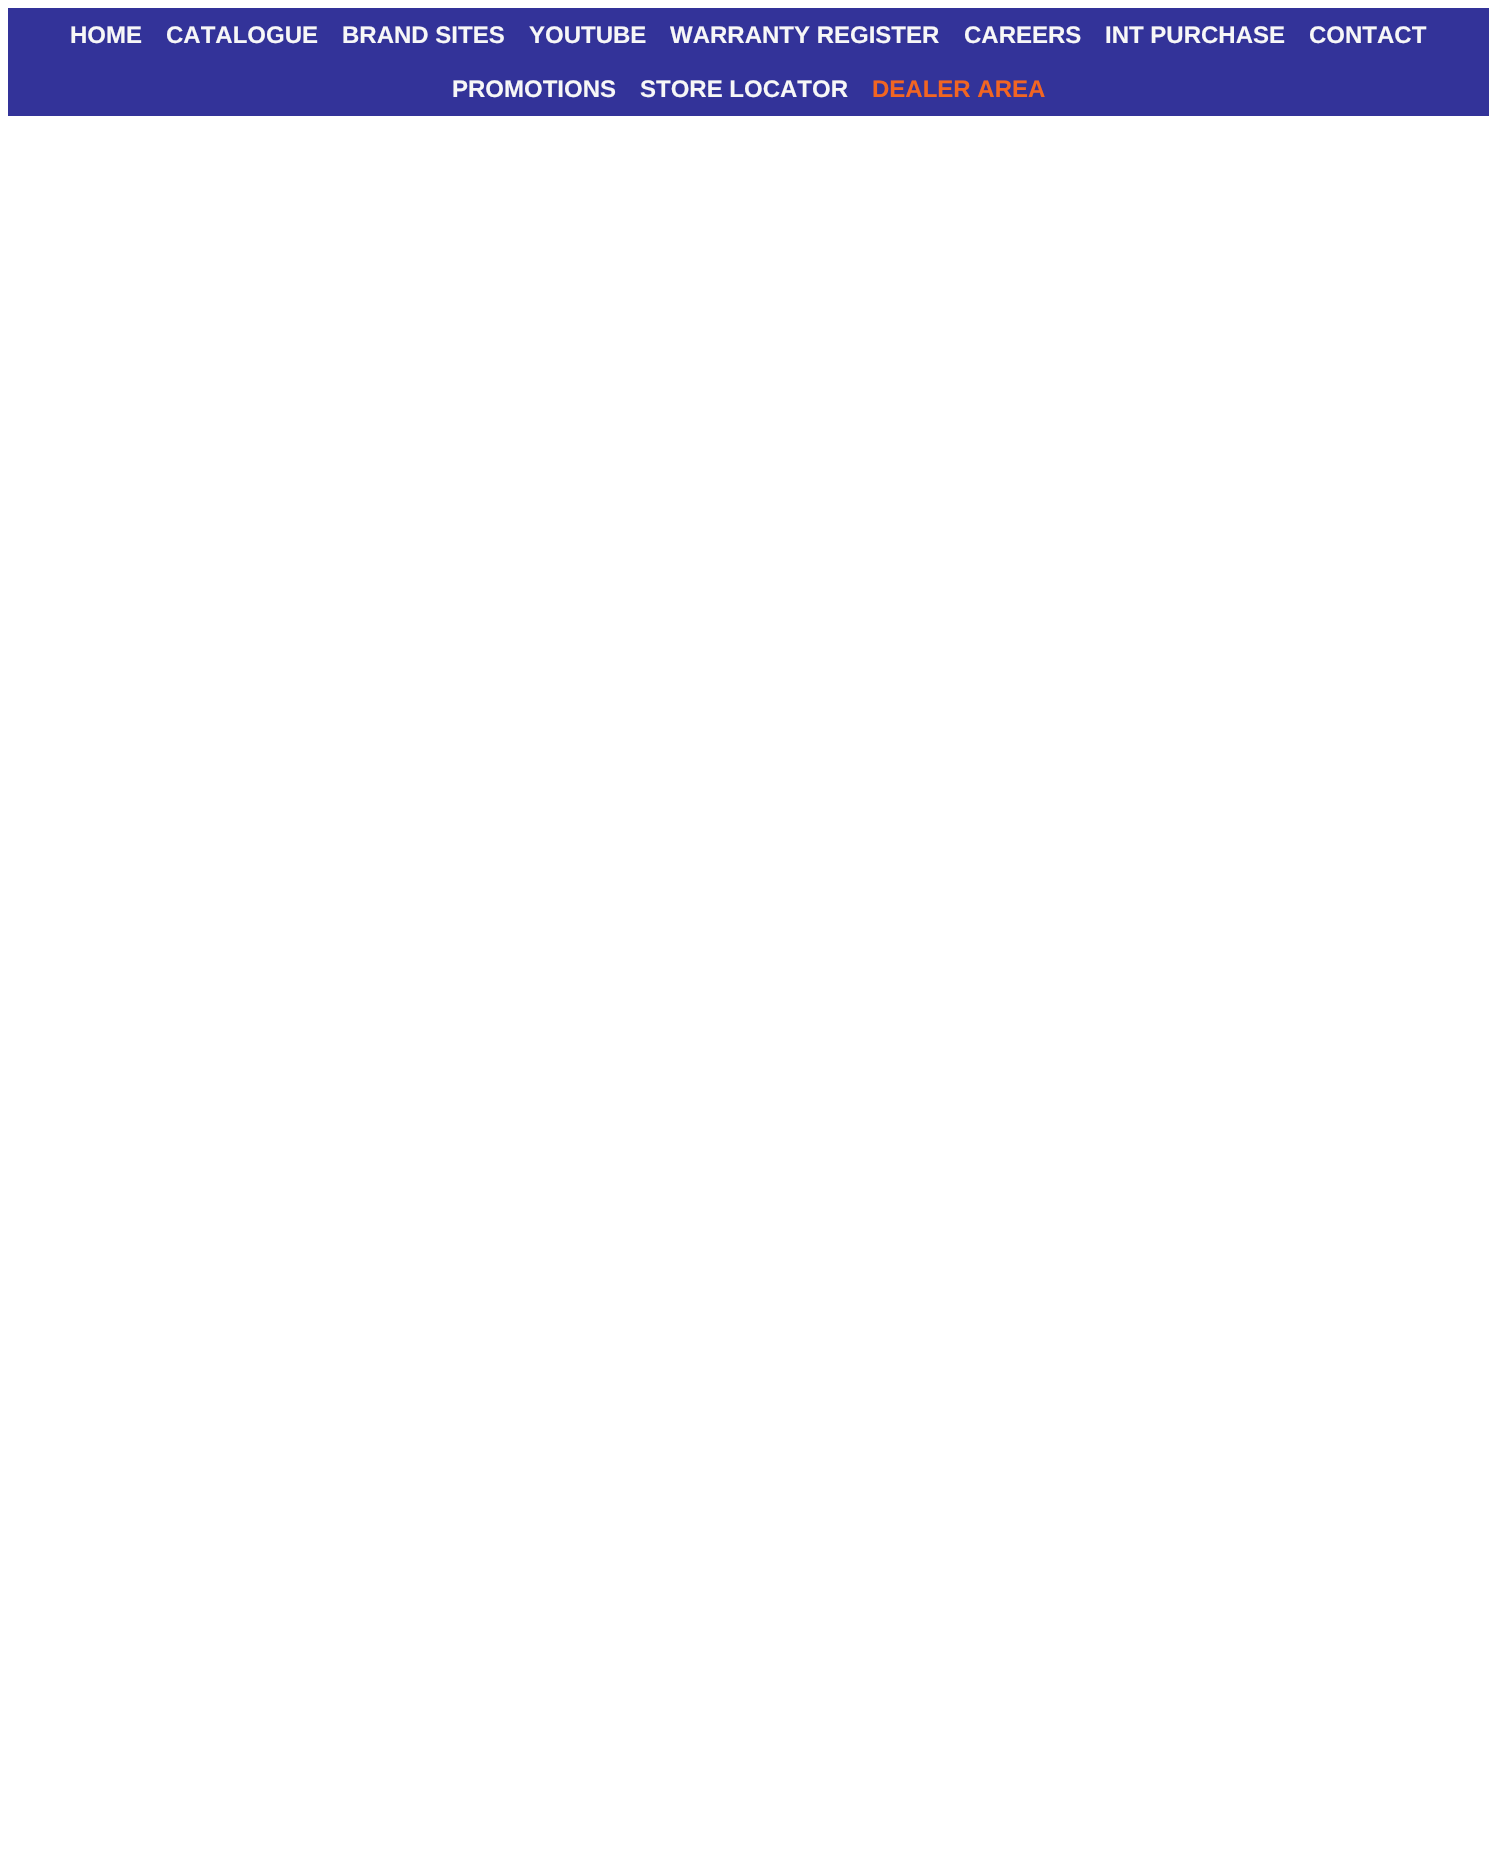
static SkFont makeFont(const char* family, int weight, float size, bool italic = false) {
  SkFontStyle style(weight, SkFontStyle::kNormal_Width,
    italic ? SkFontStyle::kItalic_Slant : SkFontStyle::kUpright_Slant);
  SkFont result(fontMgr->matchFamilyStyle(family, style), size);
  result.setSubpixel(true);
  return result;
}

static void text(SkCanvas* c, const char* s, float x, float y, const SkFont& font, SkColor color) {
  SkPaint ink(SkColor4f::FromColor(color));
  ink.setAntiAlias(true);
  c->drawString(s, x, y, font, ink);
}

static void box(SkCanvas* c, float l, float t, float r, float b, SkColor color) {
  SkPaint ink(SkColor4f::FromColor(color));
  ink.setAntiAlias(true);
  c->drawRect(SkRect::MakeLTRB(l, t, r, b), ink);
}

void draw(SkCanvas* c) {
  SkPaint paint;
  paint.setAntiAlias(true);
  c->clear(0xffffffff);
  box(c, 8, 8, 1489, 116, 0xff333399);
  SkFont face1 = makeFont("Liberation Sans", 700, 24);
  text(c, "HOME", 70, 43, face1, 0xfff7f7f7);
  text(c, "CATALOGUE", 166, 43, face1, 0xfff7f7f7);
  text(c, "BRAND SITES", 342, 43, face1, 0xfff7f7f7);
  text(c, "YOUTUBE", 529, 43, face1, 0xfff7f7f7);
  text(c, "WARRANTY REGISTER", 670, 43, face1, 0xfff7f7f7);
  text(c, "CAREERS", 964, 43, face1, 0xfff7f7f7);
  text(c, "INT PURCHASE", 1105, 43, face1, 0xfff7f7f7);
  text(c, "CONTACT", 1309, 43, face1, 0xfff7f7f7);
  text(c, "PROMOTIONS", 452, 97, face1, 0xfff7f7f7);
  text(c, "STORE LOCATOR", 640, 97, face1, 0xfff7f7f7);
  text(c, "DEALER AREA", 872, 97, face1, 0xfff26522);
}
